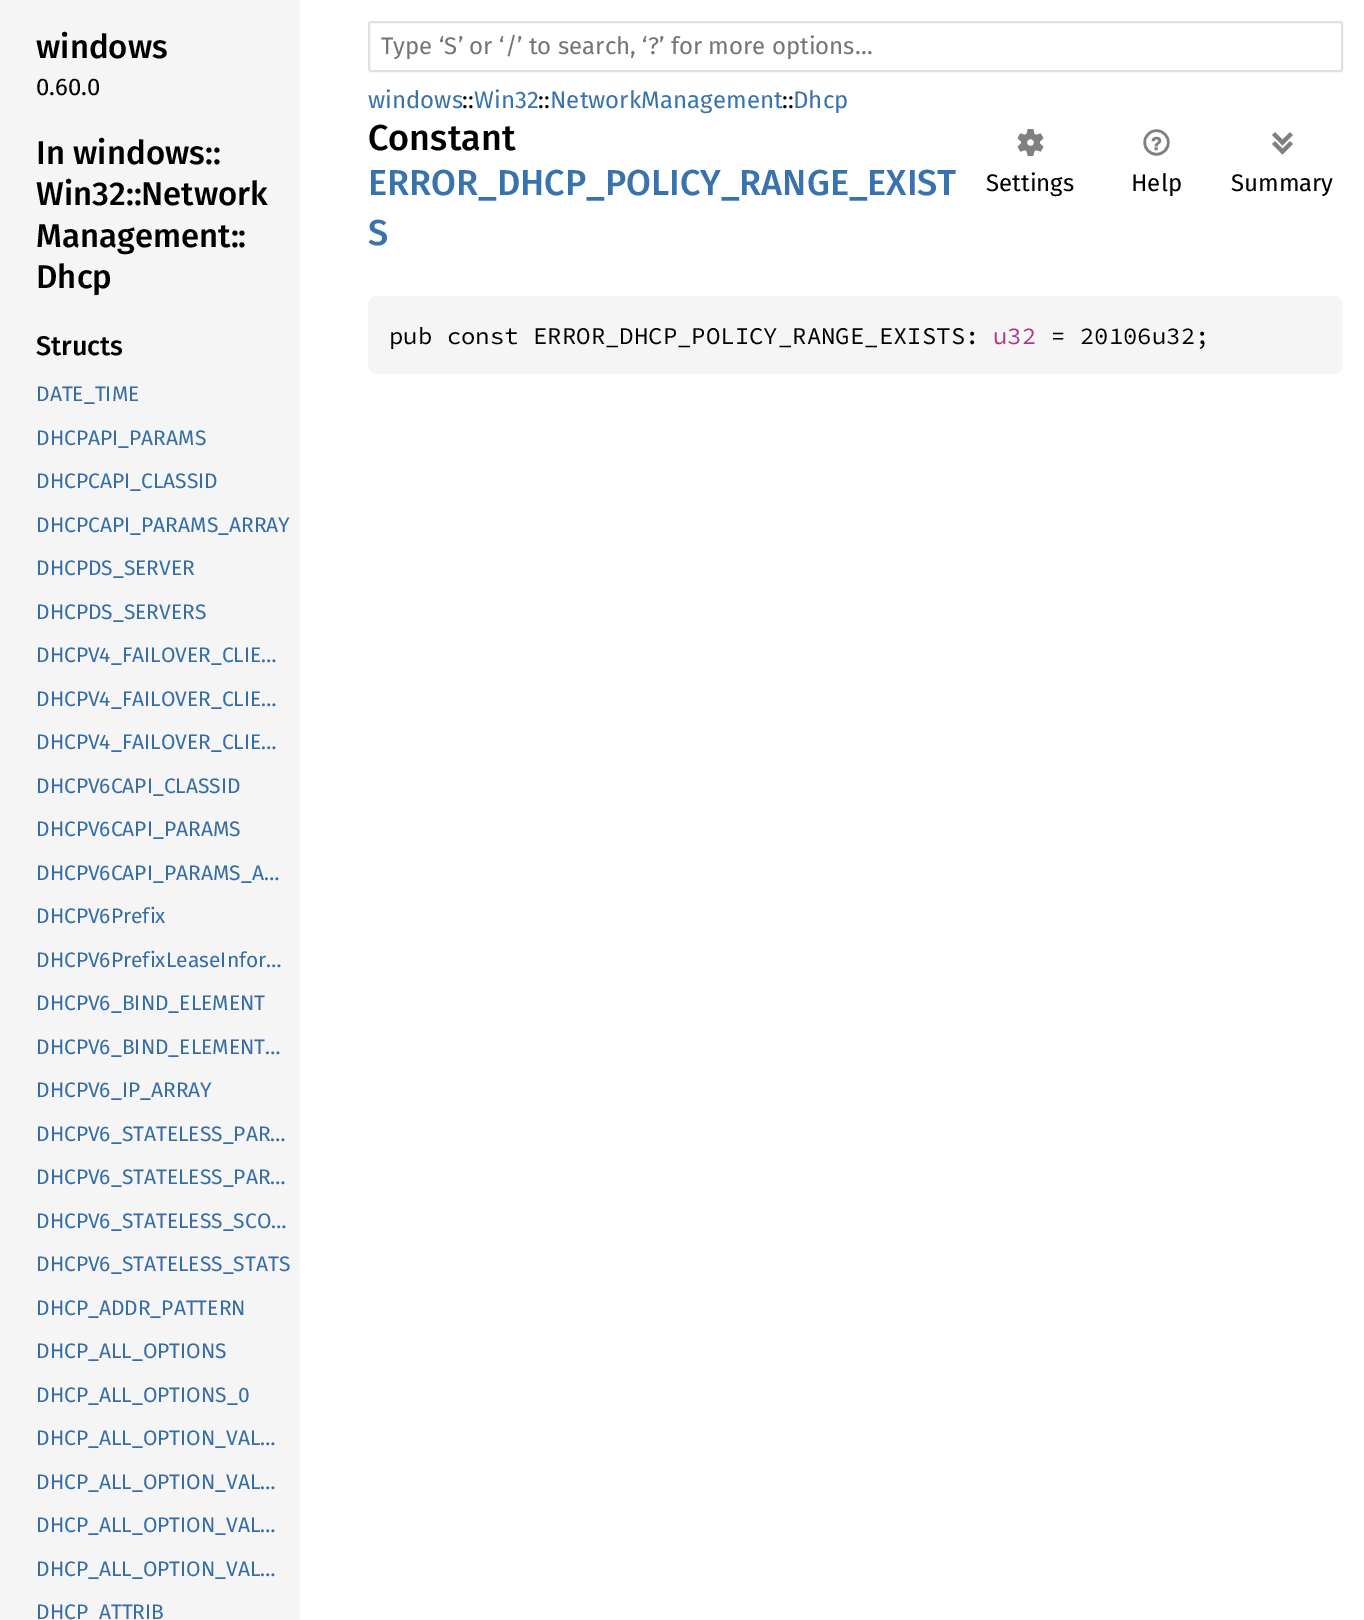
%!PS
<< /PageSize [1364 1620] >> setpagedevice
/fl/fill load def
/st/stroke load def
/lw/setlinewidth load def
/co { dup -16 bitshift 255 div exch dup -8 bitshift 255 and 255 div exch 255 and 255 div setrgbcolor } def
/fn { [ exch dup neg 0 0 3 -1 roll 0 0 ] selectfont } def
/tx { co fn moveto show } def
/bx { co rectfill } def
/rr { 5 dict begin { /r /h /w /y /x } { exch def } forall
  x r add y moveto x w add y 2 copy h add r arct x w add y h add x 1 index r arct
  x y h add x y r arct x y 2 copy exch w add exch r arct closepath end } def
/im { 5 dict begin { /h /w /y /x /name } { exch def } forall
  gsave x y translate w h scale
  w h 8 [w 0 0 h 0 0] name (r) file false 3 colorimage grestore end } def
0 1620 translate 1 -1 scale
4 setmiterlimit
0 0 1364 1620 16#FFFFFF bx
0 0 300 1620 16#F5F5F5 bx
16#E0E0E0 co
2 lw
369 22 973 49 2 rr st
(media/1.raw) 1017 129 27 27 im
(media/2.raw) 1143 129 27 27 im
(media/3.raw) 1272 132 21 23 im
16#F5F5F5 co
368 296 975 78 9 rr fl
(windows) 36 58 /FiraSans-Medium 33 16#000000 tx
(0.60.0) 36 95 /FiraSans-Regular 24 16#000000 tx
(In windows::) 36 164 /FiraSans-Medium 33 16#000000 tx
(Win32::) 36 205 /FiraSans-Medium 33 16#000000 tx
(Network) 141 205 /FiraSans-Medium 33 16#000000 tx
(Management::) 36 247 /FiraSans-Medium 33 16#000000 tx
(Dhcp) 36 288 /FiraSans-Medium 33 16#000000 tx
(Structs) 36 355 /FiraSans-Medium 27 16#000000 tx
(DATE_TIME) 36 401 /FiraSans-Regular 21 16#356DA4 tx
(DHCPAPI_PARAMS) 36 445 /FiraSans-Regular 21 16#356DA4 tx
(DHCPCAPI_CLASSID) 36 488 /FiraSans-Regular 21 16#356DA4 tx
(DHCPCAPI_PARAMS_ARRAY) 36 532 /FiraSans-Regular 21 16#356DA4 tx
(DHCPDS_SERVER) 36 575 /FiraSans-Regular 21 16#356DA4 tx
(DHCPDS_SERVERS) 36 619 /FiraSans-Regular 21 16#356DA4 tx
(DHCPV4_FAILOVER_CLIE…) 36 662 /FiraSans-Regular 21 16#356DA4 tx
(DHCPV4_FAILOVER_CLIE…) 36 706 /FiraSans-Regular 21 16#356DA4 tx
(DHCPV4_FAILOVER_CLIE…) 36 749 /FiraSans-Regular 21 16#356DA4 tx
(DHCPV6CAPI_CLASSID) 36 793 /FiraSans-Regular 21 16#356DA4 tx
(DHCPV6CAPI_PARAMS) 36 836 /FiraSans-Regular 21 16#356DA4 tx
(DHCPV6CAPI_PARAMS_A…) 36 880 /FiraSans-Regular 21 16#356DA4 tx
(DHCPV6Prefix) 36 923 /FiraSans-Regular 21 16#356DA4 tx
(DHCPV6PrefixLeaseInfor…) 36 967 /FiraSans-Regular 21 16#356DA4 tx
(DHCPV6_BIND_ELEMENT) 36 1010 /FiraSans-Regular 21 16#356DA4 tx
(DHCPV6_BIND_ELEMENT…) 36 1054 /FiraSans-Regular 21 16#356DA4 tx
(DHCPV6_IP_ARRAY) 36 1097 /FiraSans-Regular 21 16#356DA4 tx
(DHCPV6_STATELESS_PAR…) 36 1141 /FiraSans-Regular 21 16#356DA4 tx
(DHCPV6_STATELESS_PAR…) 36 1184 /FiraSans-Regular 21 16#356DA4 tx
(DHCPV6_STATELESS_SCO…) 36 1228 /FiraSans-Regular 21 16#356DA4 tx
(DHCPV6_STATELESS_STATS) 36 1271 /FiraSans-Regular 21 16#356DA4 tx
(DHCP_ADDR_PATTERN) 36 1315 /FiraSans-Regular 21 16#356DA4 tx
(DHCP_ALL_OPTIONS) 36 1358 /FiraSans-Regular 21 16#356DA4 tx
(DHCP_ALL_OPTIONS_0) 36 1402 /FiraSans-Regular 21 16#356DA4 tx
(DHCP_ALL_OPTION_VAL…) 36 1445 /FiraSans-Regular 21 16#356DA4 tx
(DHCP_ALL_OPTION_VAL…) 36 1489 /FiraSans-Regular 21 16#356DA4 tx
(DHCP_ALL_OPTION_VAL…) 36 1532 /FiraSans-Regular 21 16#356DA4 tx
(DHCP_ALL_OPTION_VAL…) 36 1576 /FiraSans-Regular 21 16#356DA4 tx
(DHCP_ATTRIB) 36 1619 /FiraSans-Regular 21 16#356DA4 tx
(Type ‘S’ or ‘/’ to search, ‘?’ for more options…) 381 54 /FiraSans-Regular 24 16#757575 tx
(windows) 368 108 /FiraSans-Regular 24 16#3873AD tx
(::) 462 108 /FiraSans-Regular 24 16#000000 tx
(Win32) 474 108 /FiraSans-Regular 24 16#3873AD tx
(::) 538 108 /FiraSans-Regular 24 16#000000 tx
(::) 782 108 /FiraSans-Regular 24 16#000000 tx
(NetworkManagement) 550 108 /FiraSans-Regular 24 16#3873AD tx
(Dhcp) 793 108 /FiraSans-Regular 24 16#3873AD tx
(Constant) 368 150 /FiraSans-Medium 36 16#000000 tx
(ERROR_DHCP_POLICY_RANGE_EXIST) 368 195 /FiraSans-Medium 36 16#3873AD tx
(S) 368 245 /FiraSans-Medium 36 16#3873AD tx
(Settings) 986 191 /FiraSans-Regular 24 16#000000 tx
(Help) 1131 191 /FiraSans-Regular 24 16#000000 tx
(Summary) 1231 191 /FiraSans-Regular 24 16#000000 tx
(pub const ERROR_DHCP_POLICY_RANGE_EXISTS:) 389 344 /SourceCodePro-Regular 24 16#000000 tx
(u32) 993 344 /SourceCodePro-Regular 24 16#AD378A tx
(= 20106u32;) 1051 344 /SourceCodePro-Regular 24 16#000000 tx
showpage
